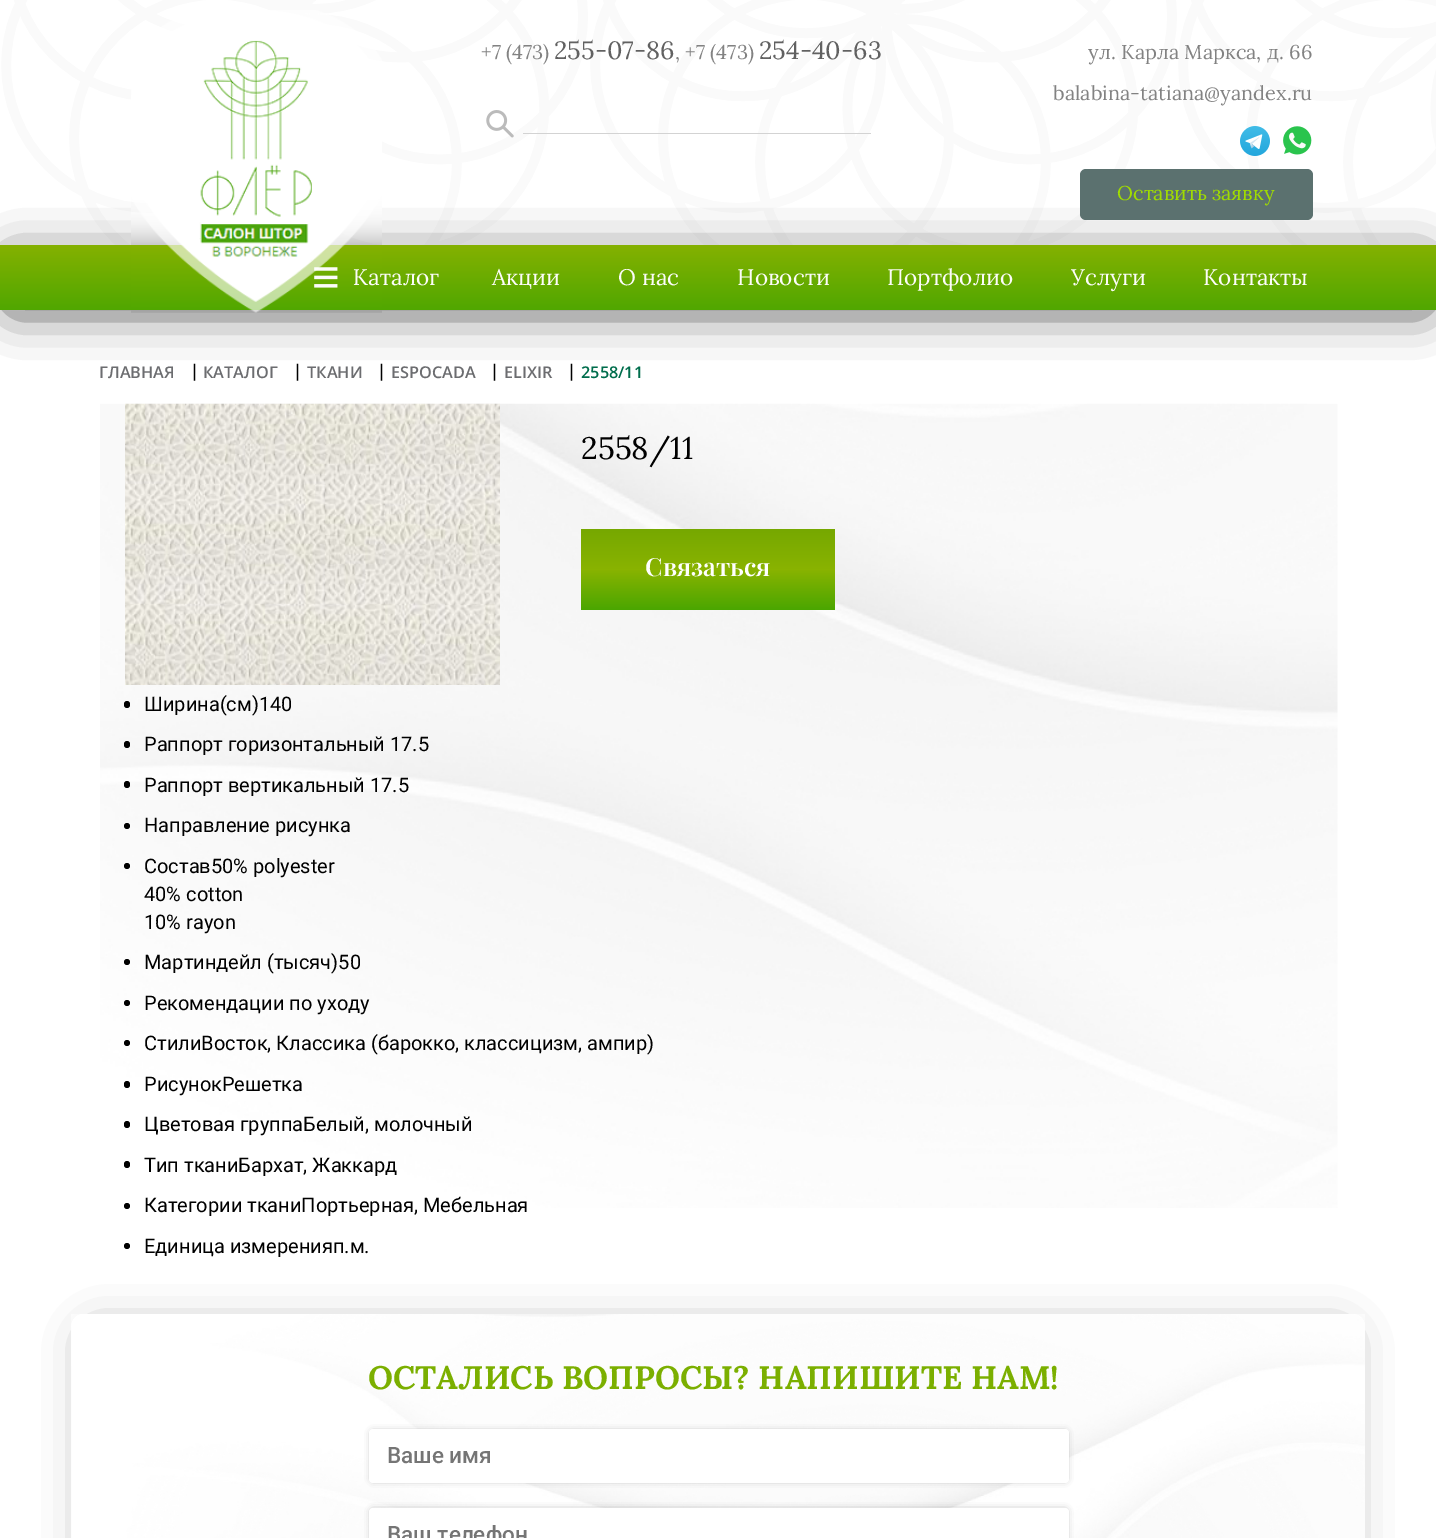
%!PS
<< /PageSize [1436 1538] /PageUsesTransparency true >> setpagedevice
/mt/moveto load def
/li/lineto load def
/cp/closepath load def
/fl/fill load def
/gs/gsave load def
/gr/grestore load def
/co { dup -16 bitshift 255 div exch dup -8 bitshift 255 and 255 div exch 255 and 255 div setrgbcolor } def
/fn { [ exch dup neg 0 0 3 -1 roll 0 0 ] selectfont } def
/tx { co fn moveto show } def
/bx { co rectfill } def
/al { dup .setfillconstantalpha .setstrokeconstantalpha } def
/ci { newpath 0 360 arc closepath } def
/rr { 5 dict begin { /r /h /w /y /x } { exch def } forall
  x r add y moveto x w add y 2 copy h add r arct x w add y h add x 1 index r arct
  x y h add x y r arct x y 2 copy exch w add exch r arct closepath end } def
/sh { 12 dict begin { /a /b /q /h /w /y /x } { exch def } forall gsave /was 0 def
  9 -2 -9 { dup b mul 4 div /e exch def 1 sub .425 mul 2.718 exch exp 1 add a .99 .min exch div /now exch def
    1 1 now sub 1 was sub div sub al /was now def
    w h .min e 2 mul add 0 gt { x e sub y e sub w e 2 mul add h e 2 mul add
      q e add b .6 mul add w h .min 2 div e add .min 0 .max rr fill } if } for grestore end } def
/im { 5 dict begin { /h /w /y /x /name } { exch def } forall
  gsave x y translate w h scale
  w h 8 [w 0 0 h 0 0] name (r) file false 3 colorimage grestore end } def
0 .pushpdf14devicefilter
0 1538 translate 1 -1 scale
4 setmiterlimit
0 0 1436 1538 16#FFFFFF bx
(media/1.raw) 1 0 1435 245 im
(media/3.raw) 486 110 28 28 im
523 133 348 1 16#D3D3D3 bx
(media/4.raw) 1240 126 30 30 im
(media/5.raw) 1283 126 29 29 im
16#000000 co
13 264 1411 40 0 25 1 sh
16#5B716F co
1080 169 233 51 6 rr fl
gs 0 245 mt 1436 245 li 1436 310 li 0 310 li cp clip newpath
<< /ShadingType 2 /ColorSpace /DeviceRGB /Coords [718 245 718 310] /Extend [true true] /Function << /FunctionType 2 /Domain [0 1] /C0 [.522 .694 0] /C1 [.314 .655 0] /N 1 >> >> shfill gr
(media/6.raw) 100 403 1238 805 im
(media/7.raw) 125 403 375 282 im
gs 581 529 mt 835 529 li 835 610 li 581 610 li cp clip newpath
<< /ShadingType 2 /ColorSpace /DeviceRGB /Coords [708 529 708 610] /Extend [true true] /Function << /FunctionType 3 /Domain [0 1] /Functions [<< /FunctionType 2 /Domain [0 1] /C0 [.463 .659 0] /C1 [.537 .702 0] /N 1 >> << /FunctionType 2 /Domain [0 1] /C0 [.537 .702 0] /C1 [.29 .651 0] /N 1 >>] /Bounds [.5] /Encode [0 1 0 1] >> >> shfill gr
16#000000 co
124 701 6 7 3 rr fl
124 741 6 7 3 rr fl
124 781 6 7 3 rr fl
127 826 3 ci fl
127 866 3 ci fl
127 962 3 ci fl
127 1003 3 ci fl
127 1043 3 ci fl
124 1081 6 7 3 rr fl
124 1121 6 7 3 rr fl
124 1161 6 7 3 rr fl
127 1206 3 ci fl
127 1246 3 ci fl
16#737373 co
95 1338 1246 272 0 24 1 sh
(media/8.raw) 71 1314 1294 224 im
373 1433 692 46 0 4 1 sh
16#FFFFFF co
369 1429 700 54 4 rr fl
16#737373 co
373 1511 692 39 0 4 1 sh
16#FFFFFF co
369 1508 700 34 4 rr fl
(+7 \(473\)) 481 59 /Lora-Regular 20 16#828282 tx
(255-07-86) 554 59 /Lora-Regular 25 16#616161 tx
(, +7 \(473\)) 675 59 /Lora-Regular 20 16#828282 tx
(254-40-63) 759 59 /Lora-Regular 25 16#616161 tx
(ул) 1088 59 /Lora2-Regular 20 16#828282 tx
(.) 1111 59 /Lora-Regular 20 16#828282 tx
(Карла Маркса) 1121 59 /Lora2-Regular 20 16#828282 tx
(,) 1256 59 /Lora-Regular 20 16#828282 tx
(д) 1267 59 /Lora2-Regular 20 16#828282 tx
(. 66) 1279 59 /Lora-Regular 20 16#828282 tx
(balabina-tatiana@yandex.ru) 1053 100 /Lora-Regular 20 16#828282 tx
(Оставить заявку) 1117 200 /Lora2-Regular 20 16#A0DC00 tx
(≡) 312 294 /LiberationSerif-Bold 50 16#FCFCF9 tx
(Каталог) 353 285 /Lora2-Regular 22.5 16#FCFCF9 tx
(media/2.raw) 131 10 251 303 im
(Акции) 492 285 /Lora2-Regular 22.5 16#FCFCF9 tx
(О нас) 618 285 /Lora2-Regular 22.5 16#FCFCF9 tx
(Новости) 737 285 /Lora2-Regular 22.5 16#FCFCF9 tx
(Портфолио) 887 285 /Lora2-Regular 22.5 16#FCFCF9 tx
(Услуги) 1071 285 /Lora2-Regular 22.5 16#FCFCF9 tx
(Контакты) 1203 285 /Lora2-Regular 22.5 16#FCFCF9 tx
(ГЛАВНАЯ) 99 378 /OpenSans-SemiBold 16.25 16#6C6D70 tx
(|) 192 378 /Roboto-Regular 20 16#000000 tx
(КАТАЛОГ) 203 378 /OpenSans-SemiBold 16.25 16#6C6D70 tx
(|) 295 378 /Roboto-Regular 20 16#000000 tx
(ТКАНИ) 307 378 /OpenSans-SemiBold 16.25 16#6C6D70 tx
(|) 379 378 /Roboto-Regular 20 16#000000 tx
(ESPOCADA) 391 378 /OpenSans-SemiBold 16.25 16#6C6D70 tx
(|) 492 378 /Roboto-Regular 20 16#000000 tx
(ELIXIR) 504 378 /OpenSans-SemiBold 16.25 16#6C6D70 tx
(|) 569 378 /Roboto-Regular 20 16#000000 tx
(2558/11) 581 378 /OpenSans-SemiBold 16.25 16#006D4C tx
(2558/11) 581 459 /Lora-Regular 31 16#000000 tx
(Связаться) 645 576 /PlayfairDisplay-SemiBold 25 16#FFFFFF tx
(Ширина\(см\)140) 144 711 /Roboto-Regular 20 16#000000 tx
(Раппорт горизонтальный 17.5) 144 751 /Roboto-Regular 20 16#000000 tx
(Раппорт вертикальный 17.5) 144 792 /Roboto-Regular 20 16#000000 tx
(Направление рисунка) 144 832 /Roboto-Regular 20 16#000000 tx
(Состав50% polyester) 144 873 /Roboto-Regular 20 16#000000 tx
(40% cotton) 144 901 /Roboto-Regular 20 16#000000 tx
(10% rayon) 144 929 /Roboto-Regular 20 16#000000 tx
(Мартиндейл \(тысяч\)50) 144 969 /Roboto-Regular 20 16#000000 tx
(Рекомендации по уходу) 144 1010 /Roboto-Regular 20 16#000000 tx
(СтилиВосток, Классика \(барокко, классицизм, ампир\)) 144 1050 /Roboto-Regular 20 16#000000 tx
(РисунокРешетка) 144 1091 /Roboto-Regular 20 16#000000 tx
(Цветовая группаБелый, молочный) 144 1131 /Roboto-Regular 20 16#000000 tx
(Тип тканиБархат, Жаккард) 144 1172 /Roboto-Regular 20 16#000000 tx
(Категории тканиПортьерная, Мебельная) 144 1212 /Roboto-Regular 20 16#000000 tx
(Единица измеренияп.м.) 144 1253 /Roboto-Regular 20 16#000000 tx
(ОСТАЛИСЬ ВОПРОСЫ? НАПИШИТЕ НАМ!) 368 1389 /Lora-Bold 32.5 16#7BAF00 tx
(Ваше имя) 387 1463 /Roboto-Medium 22.5 16#757575 tx
(Ваш телефон) 387 1542 /Roboto-Medium 22.5 16#757575 tx
.poppdf14devicefilter showpage
